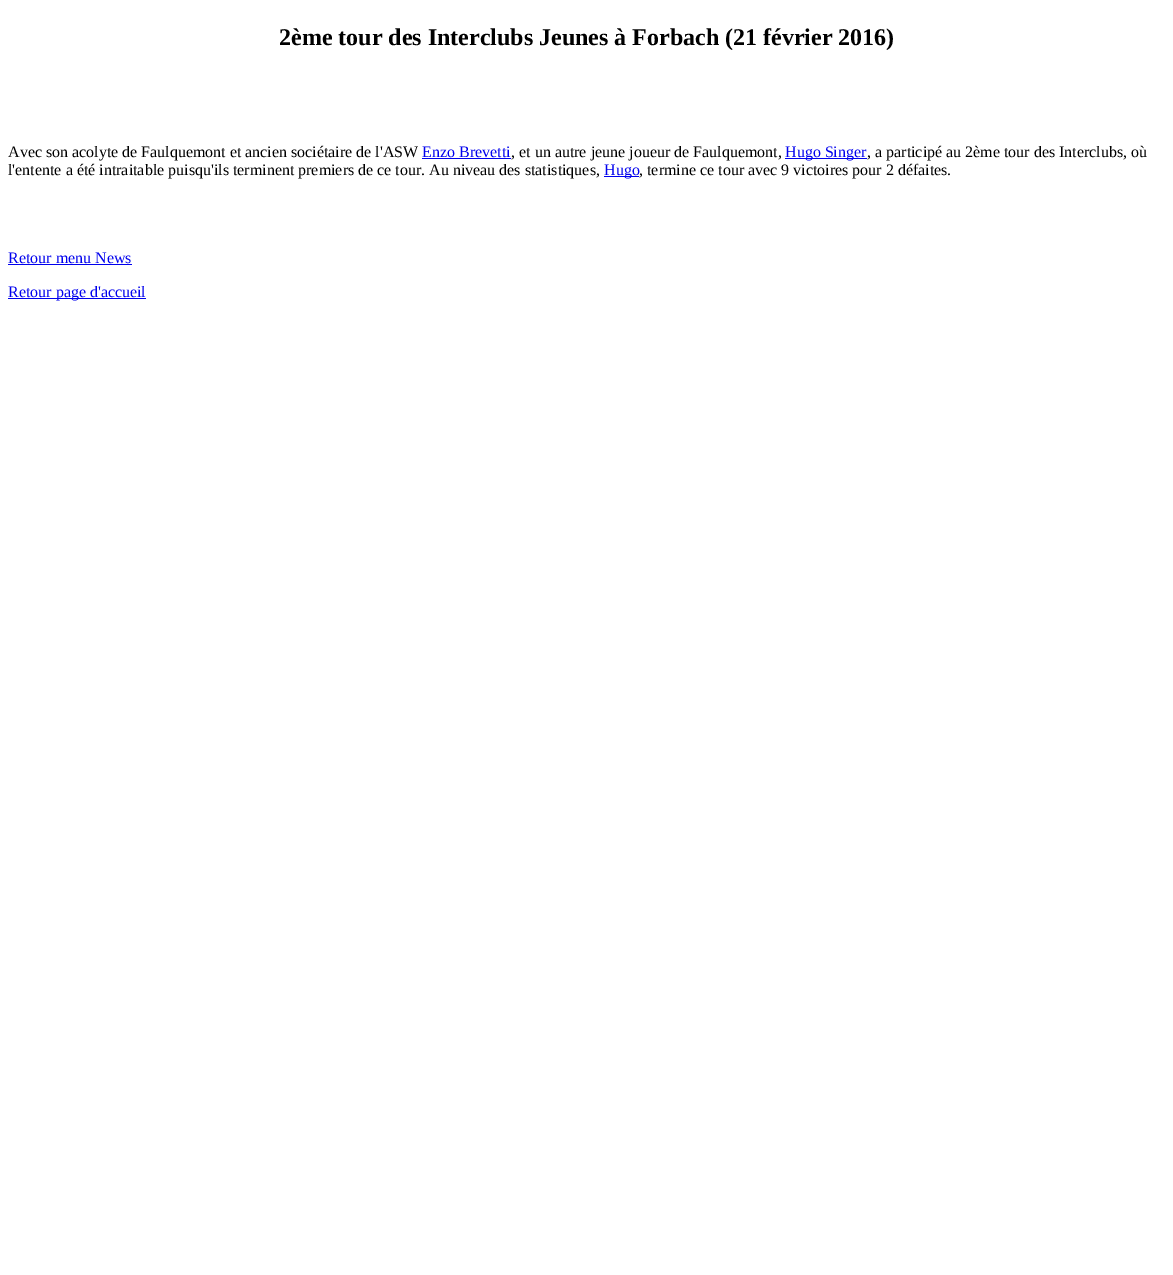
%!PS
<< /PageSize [1173 1275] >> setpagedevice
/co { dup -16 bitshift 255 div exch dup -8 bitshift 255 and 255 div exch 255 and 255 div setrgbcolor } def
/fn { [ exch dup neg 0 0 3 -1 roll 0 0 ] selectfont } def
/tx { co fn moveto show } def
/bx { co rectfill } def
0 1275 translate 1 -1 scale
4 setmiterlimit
0 0 1173 1275 16#FFFFFF bx
422 158 89 1 16#0000EE bx
785 158 82 1 16#0000EE bx
604 176 35 1 16#0000EE bx
8 264 124 1 16#0000EE bx
8 298 138 1 16#0000EE bx
(2ème tour des Interclubs Jeunes à Forbach \(21 février 2016\)) 279 45 /LiberationSerif-Bold 24 16#000000 tx
(Avec son acolyte de Faulquemont et ancien sociétaire de l'ASW) 8 157 /LiberationSerif-Regular 16 16#000000 tx
(Enzo Brevetti) 422 157 /LiberationSerif-Regular 16 16#0000EE tx
(, et un autre jeune joueur de Faulquemont,) 511 157 /LiberationSerif-Regular 16 16#000000 tx
(Hugo Singer) 785 157 /LiberationSerif-Regular 16 16#0000EE tx
(, a participé au 2ème tour des Interclubs, où) 867 157 /LiberationSerif-Regular 16 16#000000 tx
(l'entente a été intraitable puisqu'ils terminent premiers de ce tour. Au niveau des statistiques,) 8 175 /LiberationSerif-Regular 16 16#000000 tx
(Hugo) 604 175 /LiberationSerif-Regular 16 16#0000EE tx
(, termine ce tour avec 9 victoires pour 2 défaites.) 639 175 /LiberationSerif-Regular 16 16#000000 tx
(Retour menu News) 8 263 /LiberationSerif-Regular 16 16#0000EE tx
(Retour page d'accueil) 8 297 /LiberationSerif-Regular 16 16#0000EE tx
showpage
